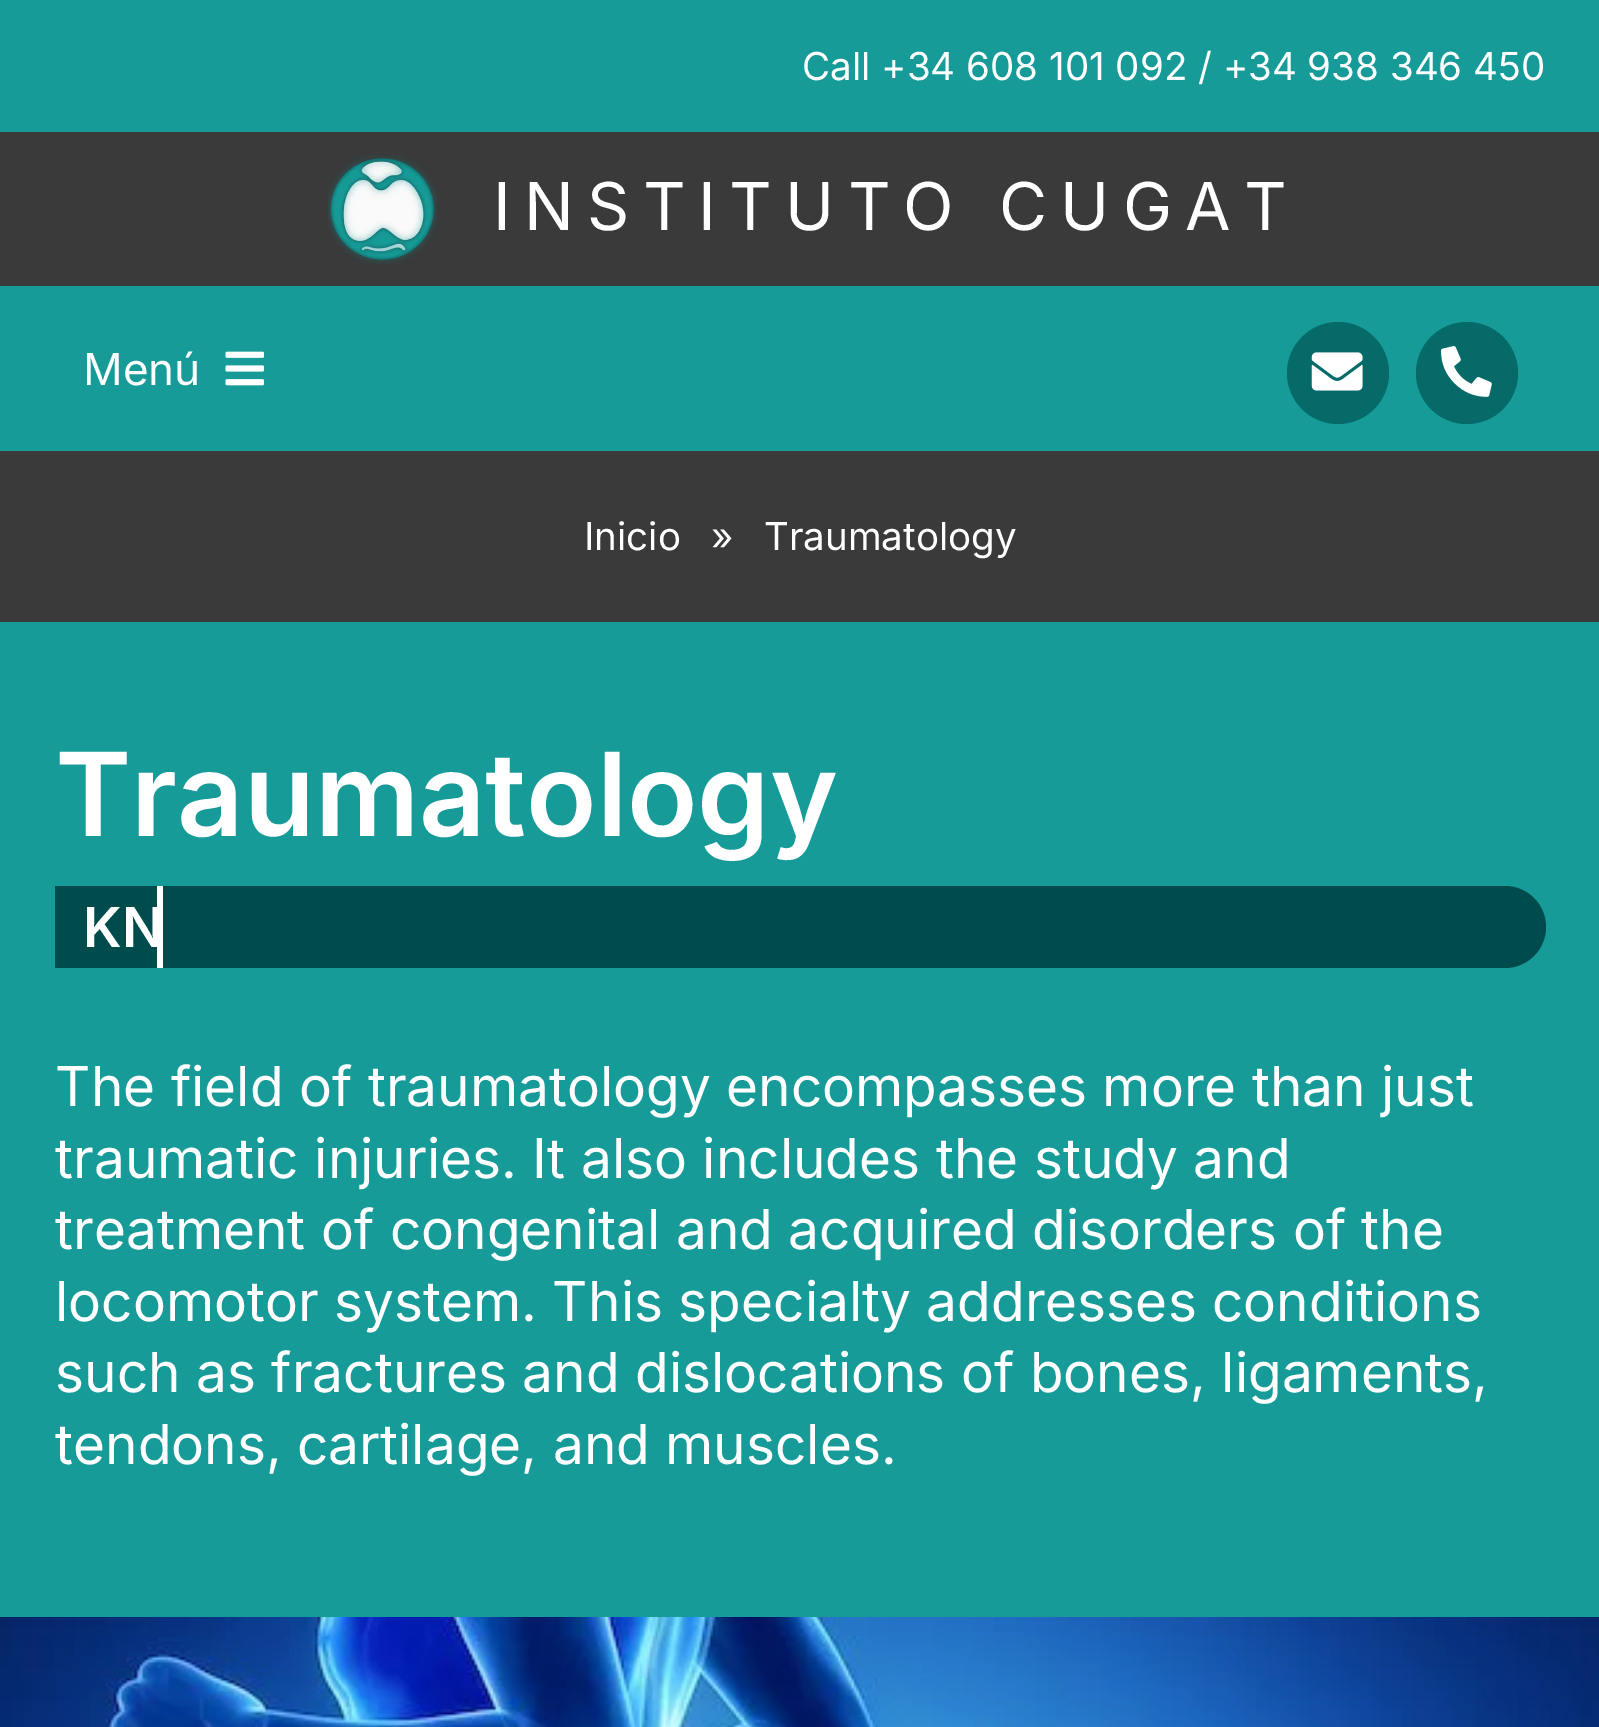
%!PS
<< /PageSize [1599 1727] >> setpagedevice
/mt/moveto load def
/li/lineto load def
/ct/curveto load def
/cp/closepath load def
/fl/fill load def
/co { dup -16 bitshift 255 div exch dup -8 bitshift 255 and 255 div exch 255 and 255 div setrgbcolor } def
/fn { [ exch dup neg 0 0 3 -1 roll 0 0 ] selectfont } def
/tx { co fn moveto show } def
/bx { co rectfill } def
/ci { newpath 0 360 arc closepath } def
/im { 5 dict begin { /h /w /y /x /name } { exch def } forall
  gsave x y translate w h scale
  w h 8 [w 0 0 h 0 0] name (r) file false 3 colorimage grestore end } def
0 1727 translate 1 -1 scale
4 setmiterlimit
0 0 1599 1727 16#3A3A3A bx
0 0 1599 132 16#169B98 bx
(media/1.raw) 327 155 110 109 im
0 286 1599 165 16#169B98 bx
(media/2.raw) 225 351 39 35 im
16#066A68 co
1338 373 51 ci fl
(media/3.raw) 1311 352 52 39 im
1467 373 51 ci fl
(media/4.raw) 1441 346 51 51 im
0 622 1599 995 16#169B98 bx
16#004C4C co
55 886 mt 1505 886 li 1527.5 886 1546 904.5 1546 927 ct 1546 949.5 1527.5 968 1505 968 ct 55 968 li cp fl
157 886 6 82 16#FFFFFF bx
(media/5.raw) 0 1617 1599 110 im
(Call +34 608 101 092 / +34 938 346 450) 802 80 /Inter-Regular 38.5 16#FFFFFF tx
/Inter-Regular 66 fn
493 230 mt 13.25 0 (INSTITUTO CUGAT) ashow
(Menú) 83 385 /Inter-Regular 44 16#FFFFFF tx
(Inicio) 584 550 /Inter-Regular 38.5 16#FFFFFF tx
(») 711 550 /Inter-Regular 38.5 16#FFFFFF tx
(Traumatology) 764 550 /Inter-Regular 38.5 16#FFFFFF tx
(Traumatology) 55 836 /Inter-SemiBold 115.75 16#FFFFFF tx
(KN) 83 947 /Inter-SemiBold 55 16#FFFFFF tx
(The field of traumatology encompasses more than just) 55 1106 /Inter-Regular 55 16#FFFFFF tx
(traumatic injuries. It also includes the study and) 55 1178 /Inter-Regular 55 16#FFFFFF tx
(treatment of congenital and acquired disorders of the) 55 1249 /Inter-Regular 55 16#FFFFFF tx
(locomotor system. This specialty addresses conditions) 55 1321 /Inter-Regular 55 16#FFFFFF tx
(such as fractures and dislocations of bones, ligaments,) 55 1392 /Inter-Regular 55 16#FFFFFF tx
(tendons, cartilage, and muscles.) 55 1464 /Inter-Regular 55 16#FFFFFF tx
showpage
